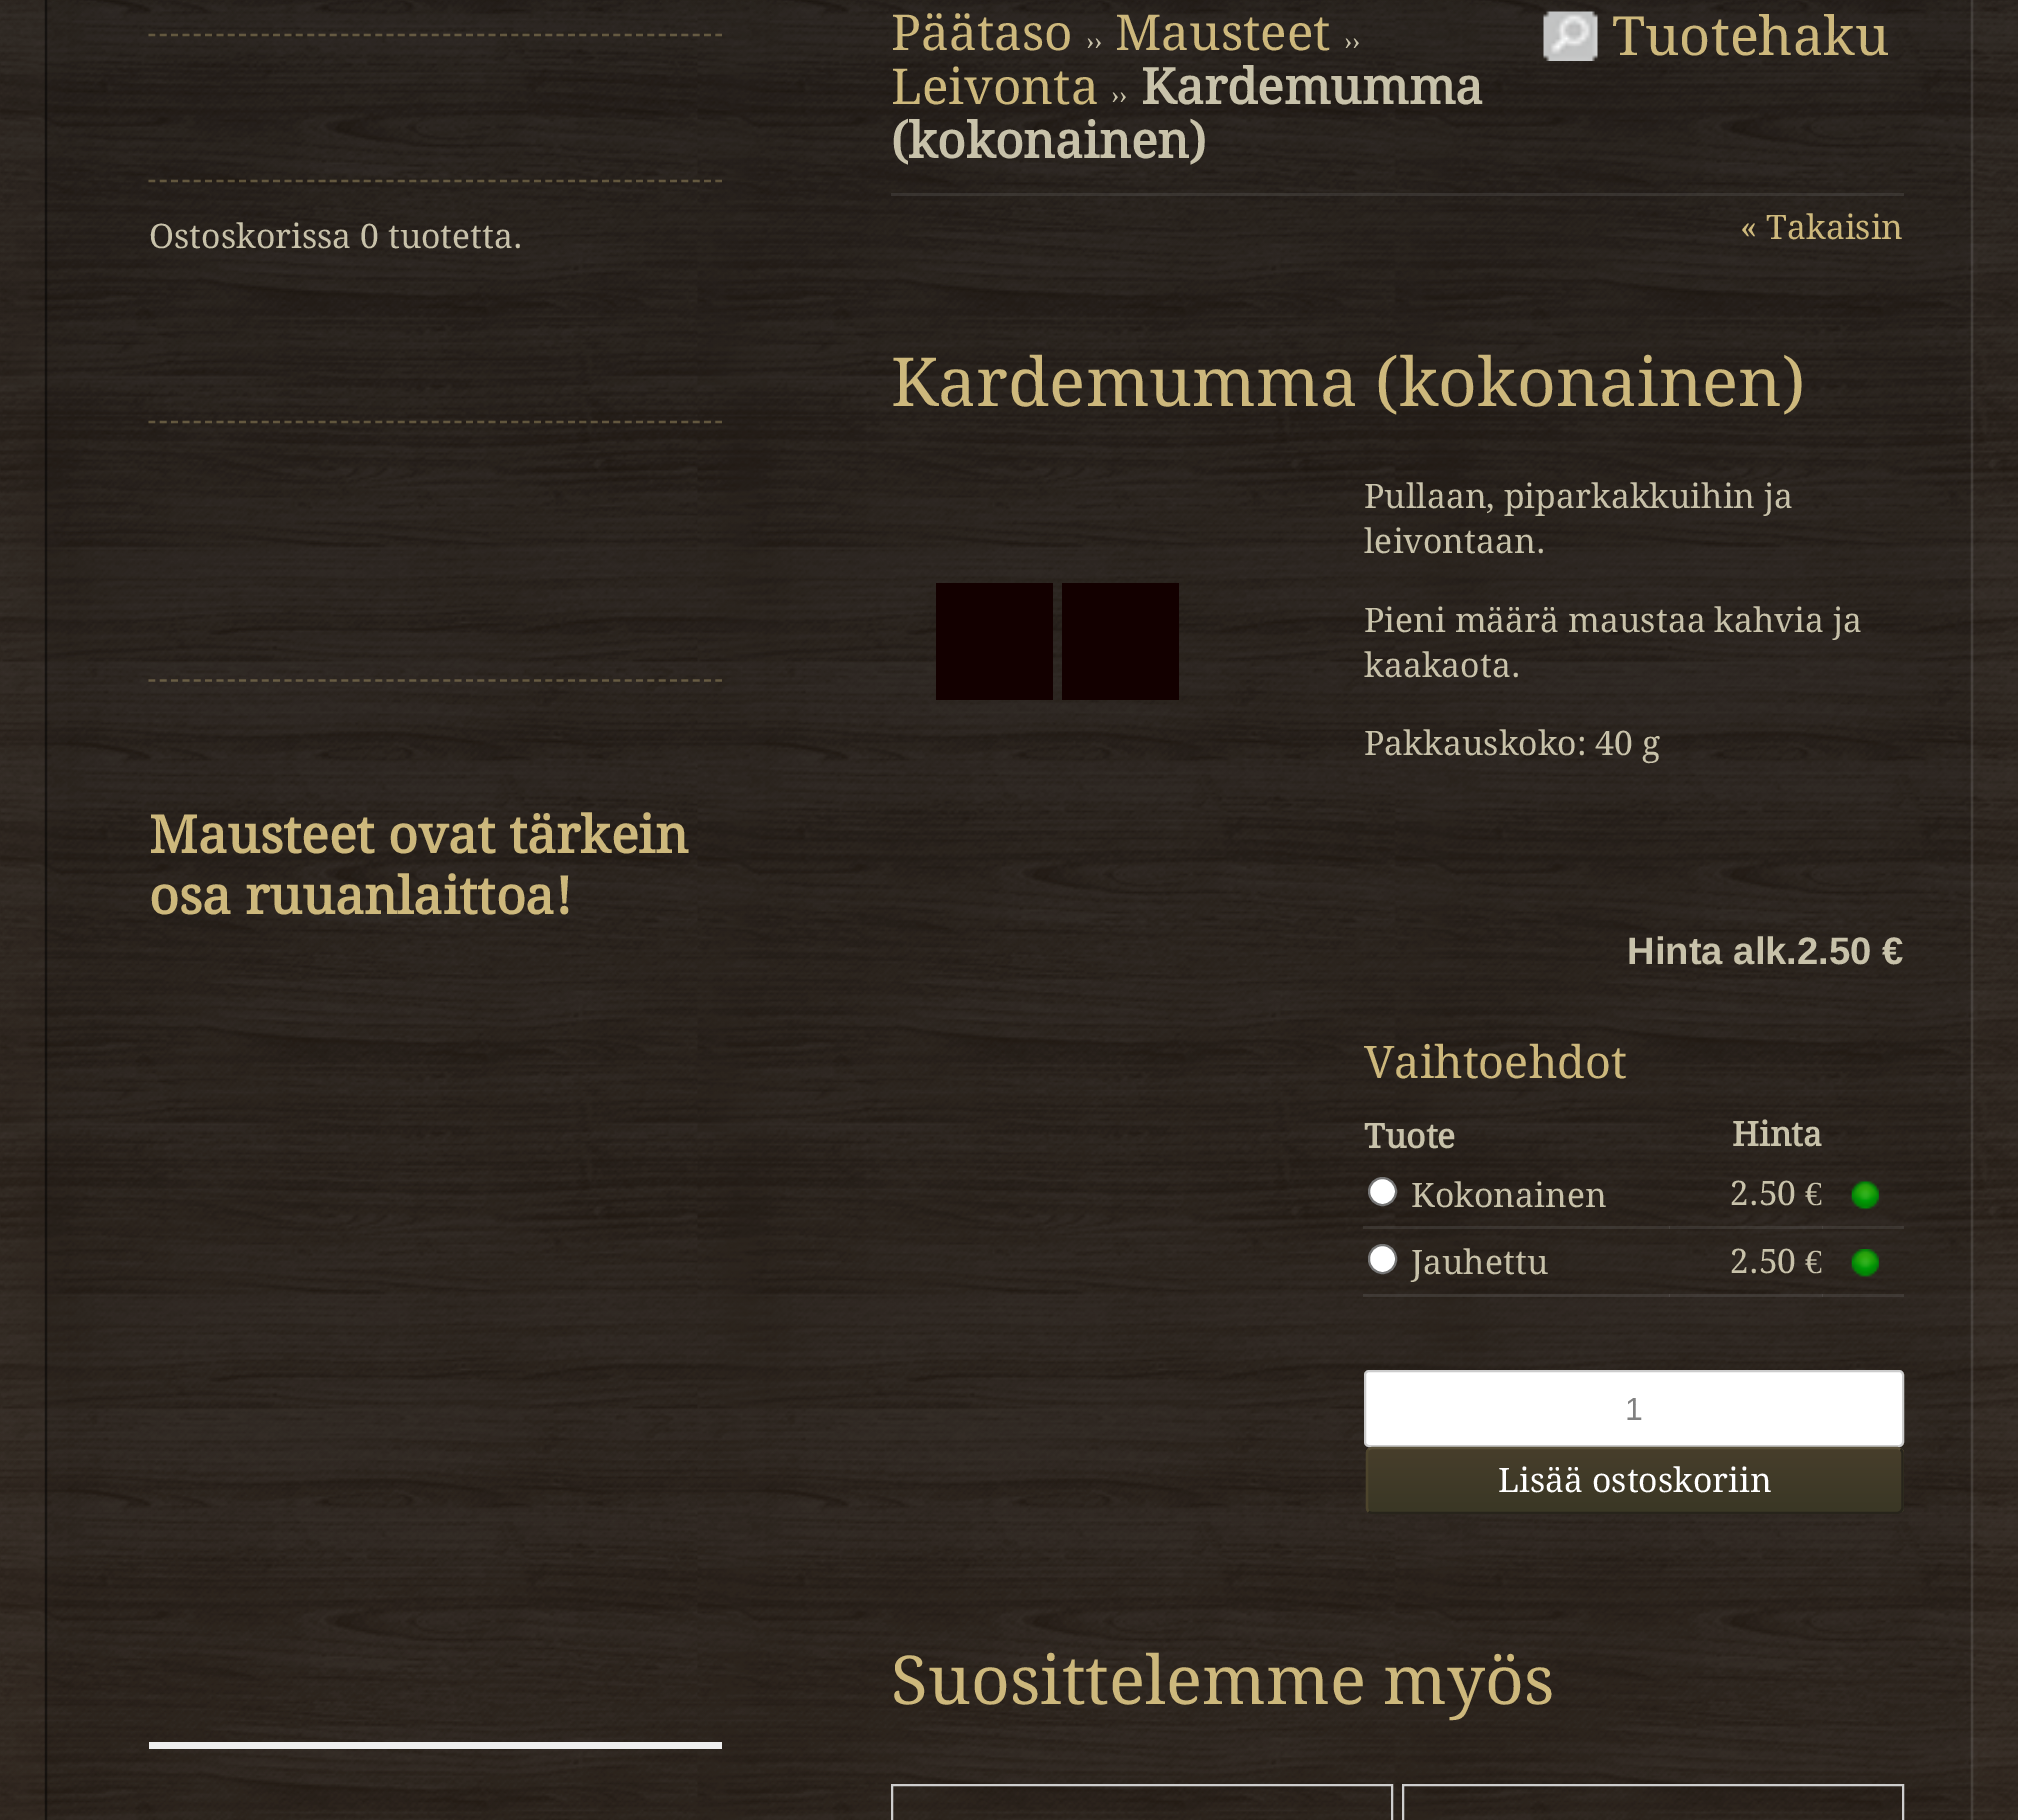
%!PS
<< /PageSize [2018 1820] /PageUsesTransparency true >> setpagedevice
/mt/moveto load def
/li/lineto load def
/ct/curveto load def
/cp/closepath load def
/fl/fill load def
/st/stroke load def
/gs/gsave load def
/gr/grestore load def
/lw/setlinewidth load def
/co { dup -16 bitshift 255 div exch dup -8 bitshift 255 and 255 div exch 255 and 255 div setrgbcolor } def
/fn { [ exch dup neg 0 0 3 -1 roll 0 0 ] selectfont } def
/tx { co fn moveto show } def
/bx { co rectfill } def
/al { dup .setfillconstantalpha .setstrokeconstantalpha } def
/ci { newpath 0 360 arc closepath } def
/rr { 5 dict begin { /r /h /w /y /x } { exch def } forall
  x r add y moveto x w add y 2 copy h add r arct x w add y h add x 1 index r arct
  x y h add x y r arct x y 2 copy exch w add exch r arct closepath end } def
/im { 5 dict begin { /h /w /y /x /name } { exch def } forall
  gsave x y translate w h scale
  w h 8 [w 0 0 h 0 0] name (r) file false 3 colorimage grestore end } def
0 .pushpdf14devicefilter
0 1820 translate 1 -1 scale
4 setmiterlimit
0 0 2018 1820 16#FFFFFF bx
(media/1.raw) 0 0 2018 1820 im
0.12 al
2.2 lw
1966 -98.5 mt 1970 -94.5 1972 -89 1972 -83 ct 1972 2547 li 1972 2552.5 1970 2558 1966 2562 ct 1962 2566 1956.5 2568.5 1951 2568.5 ct 67.5 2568.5 li 62 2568.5 56.5 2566 52.5 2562 ct st
0.49 al
16#000000 co
52.5 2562 mt 48.5 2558 46 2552.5 46 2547 ct 46 -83 li 46 -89 48.5 -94.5 52.5 -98.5 ct 56.5 -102.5 62 -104.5 67.5 -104.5 ct 1951 -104.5 li 1956.5 -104.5 1962 -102.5 1966 -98.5 ct st
0.36 al
16#CDB87C co
[6.75 4.59] 0 setdash
148.5 35 mt 722 35 li st
148.5 181 mt 722 181 li st
148.5 422 mt 722 422 li st
148.5 680.5 mt 722 680.5 li st
1 al
149 1742 573 7 16#EEEEEE bx
(media/2.raw) 1543 11 55 50 im
0.2 al
891 193 1013 3 16#828282 bx
1 al
936 583 117 117 16#130000 bx
1062 583 117 117 16#130000 bx
16#FFFFFF co
1382.5 1191.5 13.5 ci gs fl gr
16#767676 co
2 lw
[] 0 setdash
st
(media/3.raw) 1851 1181 28 29 im
0.2 al
1363 1226 307 3 16#828282 bx
1669 1226 154 3 16#828282 bx
1822 1226 82 3 16#828282 bx
1 al
16#FFFFFF co
1369 1245 27 28 13.5 rr gs fl gr
16#767676 co
st
(media/4.raw) 1851 1249 28 28 im
0.2 al
1363 1294 307 3 16#828282 bx
1669 1294 154 3 16#828282 bx
1822 1294 82 3 16#828282 bx
1 al
16#FFFFFF co
1365 1371 538 75 4 rr gs fl gr
16#CCCCCC co
st
gs
1366 1447 538 67 7 rr clip newpath
gs 1366 1449 mt 1904 1449 li 1904 1512 li 1366 1512 li cp clip newpath
<< /ShadingType 2 /ColorSpace /DeviceRGB /Coords [1635 1449 1635 1512] /Extend [true true] /Function << /FunctionType 2 /Domain [0 1] /C0 [.278 .243 .169] /C1 [.227 .216 .145] /N 1 >> >> shfill gr
gr
16#595039 co
2.2 lw
1368.5 1449.5 mt 1369.5 1448.5 1371 1448 1372.5 1448 ct 1897 1448 li 1898 1448 1899.5 1448.5 1900.5 1449.5 ct st
gs
891 457 1013 1057 rectclip
16#27241B co
1900.5 1449.5 mt 1902 1450.5 1902.5 1452 1902.5 1453.5 ct 1902.5 1507.5 li 1902.5 1509 1902 1510.5 1900.5 1511.5 ct 1899.5 1512.5 1898 1513 1897 1513 ct 1372.5 1513 li 1371 1513 1369.5 1512.5 1368.5 1511.5 ct st
gr
16#4D442C co
1368.5 1511.5 mt 1367.5 1510.5 1367 1509 1367 1507.5 ct 1367 1453.5 li 1367 1452 1367.5 1450.5 1368.5 1449.5 ct st
16#CECECE co
2 lw
892 1785 500 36 rectstroke
1403 1785 500 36 rectstroke
(Ostoskorissa 0 tuotetta.) 149 248 /DroidSerif-Regular 33.75 16#C8C2AA tx
(Mausteet ovat tärkein) 149 853 /DroidSerif-Bold 51.75 16#CDB87C tx
(osa ruuanlaittoa!) 149 914 /DroidSerif-Bold 51.75 16#CDB87C tx
(Päätaso) 891 50 /DroidSerif-Regular 49.5 16#CDB87C tx
(››) 1086 50 /DroidSerif-Regular 25 16#C8C2AA tx
(Mausteet) 1115 50 /DroidSerif-Regular 49.5 16#CDB87C tx
(››) 1344 50 /DroidSerif-Regular 25 16#C8C2AA tx
(Tuotehaku) 1612 55 /DroidSerif-Regular 54 16#CDB87C tx
(Leivonta) 891 104 /DroidSerif-Regular 49.5 16#CDB87C tx
(››) 1111 104 /DroidSerif-Regular 25 16#C8C2AA tx
(Kardemumma) 1141 104 /DroidSerif-Bold 49.5 16#C8C2AA tx
(\(kokonainen\)) 891 158 /DroidSerif-Bold 49.5 16#C8C2AA tx
(« Takaisin) 1740 239 /DroidSerif-Regular 33.75 16#CDB87C tx
(Kardemumma \(kokonainen\)) 891 406 /DroidSerif-Regular 67.5 16#CDB87C tx
(Pullaan, piparkakkuihin ja) 1364 508 /DroidSerif-Regular 33.75 16#C8C2AA tx
(leivontaan.) 1364 553 /DroidSerif-Regular 33.75 16#C8C2AA tx
(Pieni määrä maustaa kahvia ja) 1364 632 /DroidSerif-Regular 33.75 16#C8C2AA tx
(kaakaota.) 1364 677 /DroidSerif-Regular 33.75 16#C8C2AA tx
(Pakkauskoko: 40 g) 1364 755 /DroidSerif-Regular 33.75 16#C8C2AA tx
(Hinta alk.2.50 €) 1627 964 /LiberationSans-Bold 38.25 16#C8C2AA tx
(Vaihtoehdot) 1364 1078 /DroidSerif-Regular 45 16#CDB87C tx
(Tuote) 1364 1148 /DroidSerif-Bold 33.75 16#C8C2AA tx
(Hinta) 1732 1146 /DroidSerif-Bold 33.75 16#C8C2AA tx
(Kokonainen) 1411 1207 /DroidSerif-Regular 33.75 16#C8C2AA tx
(2.50) 1730 1205 /DroidSerif-Regular 33.75 16#C8C2AA tx
(€) 1805 1205 /LiberationSerif-Regular 33.75 16#C8C2AA tx
(Jauhettu) 1411 1274 /DroidSerif-Regular 33.75 16#C8C2AA tx
(2.50) 1730 1273 /DroidSerif-Regular 33.75 16#C8C2AA tx
(€) 1805 1273 /LiberationSerif-Regular 33.75 16#C8C2AA tx
(1) 1625 1420 /LiberationSans-Regular 32 16#818181 tx
(Lisää ostoskoriin) 1498 1492 /DroidSerif-Regular 33.75 16#FFFFFF tx
(Suosittelemme myös) 891 1704 /DroidSerif-Regular 67.5 16#CDB87C tx
.poppdf14devicefilter showpage
